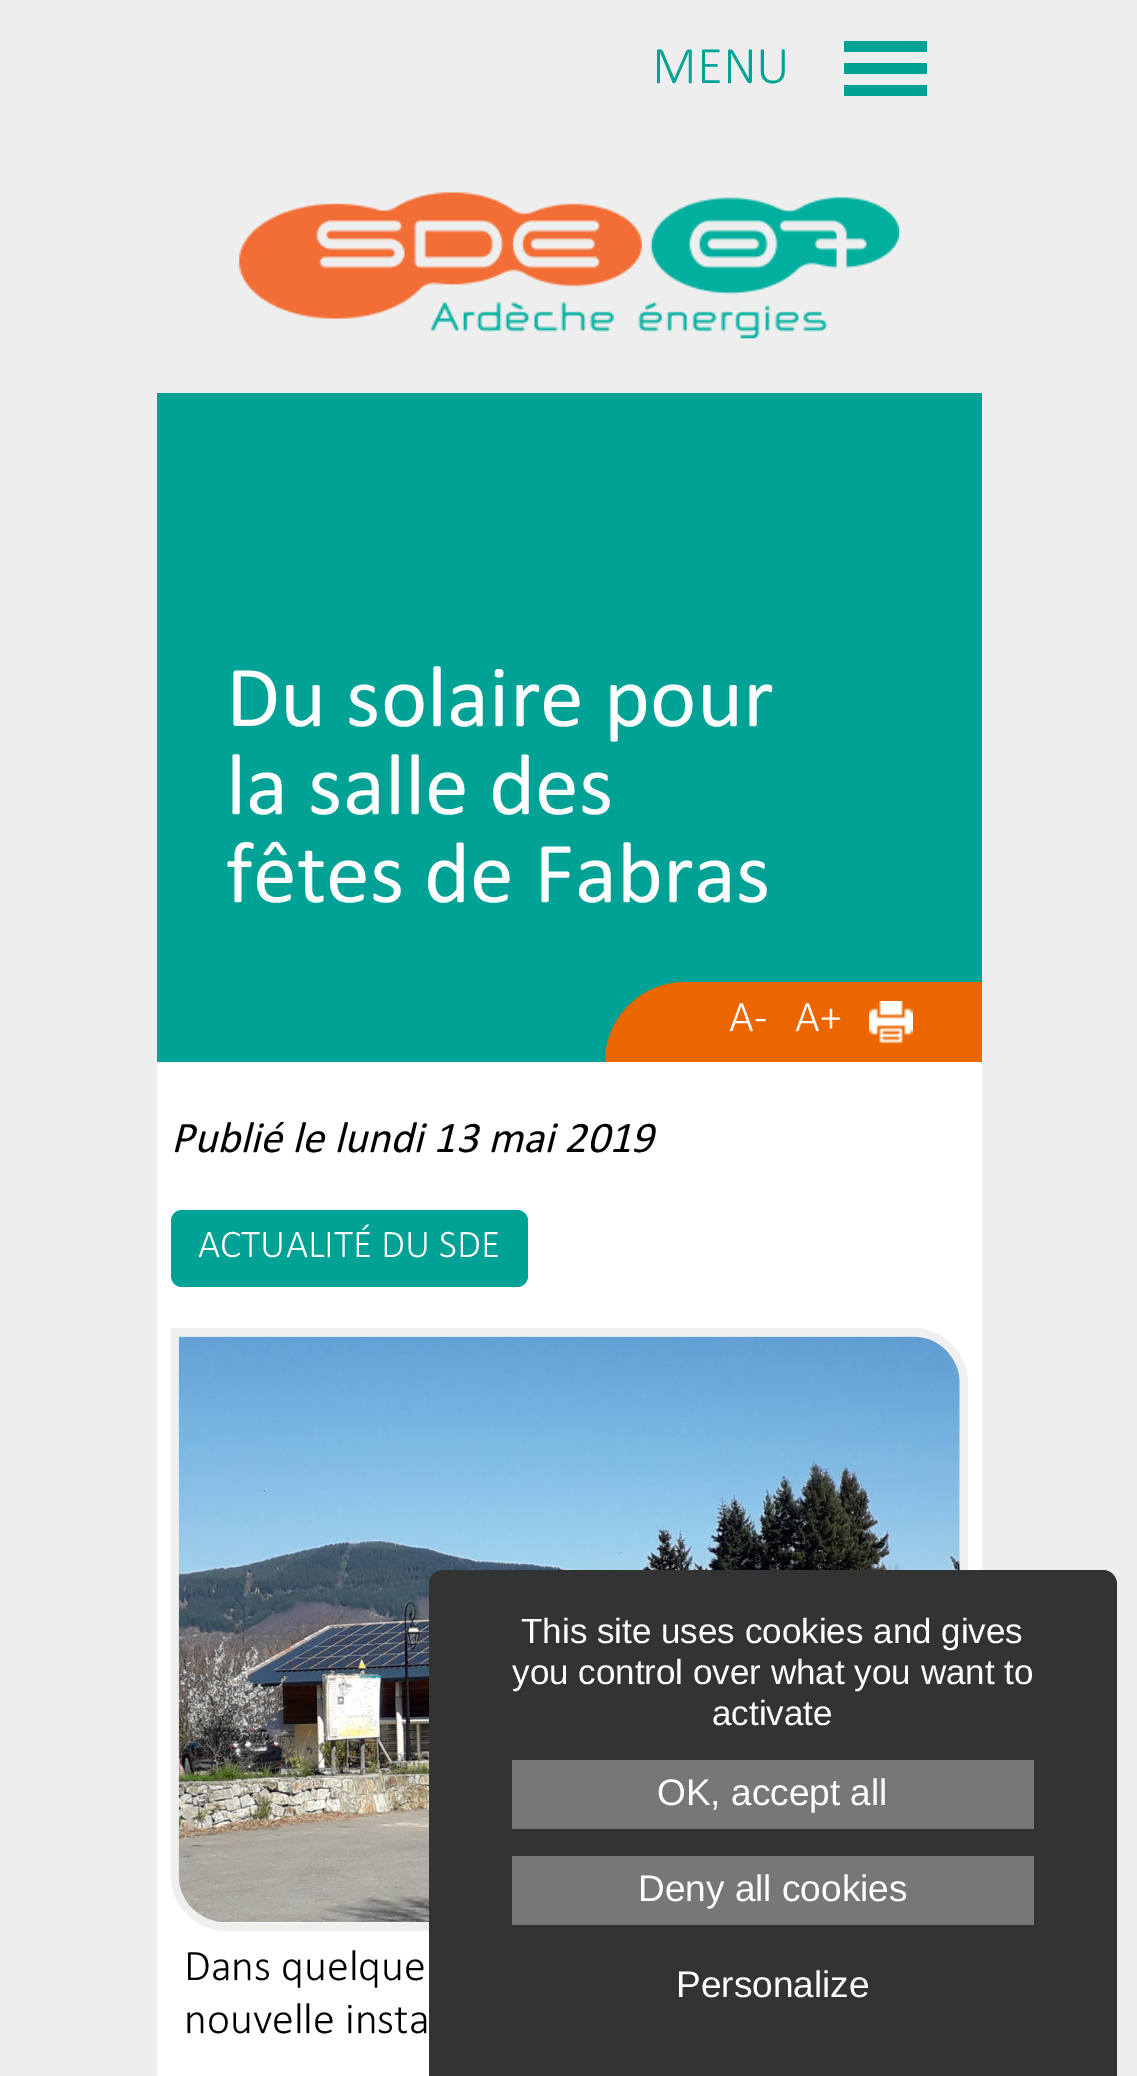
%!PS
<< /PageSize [1137 2076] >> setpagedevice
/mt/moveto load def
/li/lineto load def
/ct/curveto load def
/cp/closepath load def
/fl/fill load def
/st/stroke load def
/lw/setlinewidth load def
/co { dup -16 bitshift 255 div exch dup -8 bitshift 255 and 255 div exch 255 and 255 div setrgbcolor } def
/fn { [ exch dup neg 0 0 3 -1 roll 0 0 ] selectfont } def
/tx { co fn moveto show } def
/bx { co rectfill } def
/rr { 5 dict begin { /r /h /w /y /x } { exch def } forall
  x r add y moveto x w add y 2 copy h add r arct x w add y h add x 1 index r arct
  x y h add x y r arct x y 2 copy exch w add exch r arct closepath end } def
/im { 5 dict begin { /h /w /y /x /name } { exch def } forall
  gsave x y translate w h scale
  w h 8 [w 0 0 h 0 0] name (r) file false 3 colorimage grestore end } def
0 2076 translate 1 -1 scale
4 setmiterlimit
0 0 1137 2076 16#EEEEEE bx
157 393 825 669 16#00A295 bx
844 63 83 11 16#00A295 bx
844 41 83 11 16#00A295 bx
844 85 83 11 16#00A295 bx
(media/1.raw) 239 192 661 147 im
157 1062 825 1014 16#FFFFFF bx
16#EC6600 co
685 982 mt 982 982 li 982 1062 li 605 1062 li 605 1018 641 982 685 982 ct cp fl
(media/2.raw) 869 1001 44 43 im
16#00A295 co
171 1210 357 77 11 rr fl
16#EFEFEF co
8 lw
175 1332 mt 913 1332 li 941 1332 964 1355 964 1383 ct 964 1927 li 226 1927 li 198 1927 175 1904 175 1876 ct cp st
(media/3.raw) 178 1336 782 587 im
16#333333 co
443 1570 mt 1103 1570 li 1110.5 1570 1117 1576.5 1117 1584 ct 1117 2076 li 429 2076 li 429 1584 li 429 1576.5 435.5 1570 443 1570 ct cp fl
512 1760 522 69 16#777777 bx
512 1856 522 69 16#777777 bx
(MENU) 652 83 /Calibri-Light 53 16#00A295 tx
(Du solaire pour) 226 726 /Calibri-Regular 88 16#FFFFFF tx
(la salle des) 226 814 /Calibri-Regular 88 16#FFFFFF tx
(fêtes de Fabras) 226 902 /Calibri-Regular 88 16#FFFFFF tx
(A-) 729 1031 /Calibri-Light 44 16#FFFFFF tx
(A+) 795 1031 /Calibri-Light 44 16#FFFFFF tx
(Publié le lundi 13 mai 2019) 171 1152 /Calibri-Italic 44 16#000000 tx
(ACTUALITÉ DU SDE) 198 1257 /Calibri-Light 39.5 16#FFFFFF tx
(Dans quelque) 184 1980 /Calibri-Light 44 16#000000 tx
(nouvelle insta) 184 2033 /Calibri-Light 44 16#000000 tx
(This site uses cookies and gives) 521 1643 /LiberationSans-Regular 35 16#FFFFFF tx
(you control over what you want to) 512 1684 /LiberationSans-Regular 35 16#FFFFFF tx
(activate) 712 1725 /LiberationSans-Regular 35 16#FFFFFF tx
(OK, accept all) 657 1805 /LiberationSans-Regular 37 16#FFFFFF tx
(Deny all cookies) 638 1901 /LiberationSans-Regular 37 16#FFFFFF tx
(Personalize) 676 1997 /LiberationSans-Regular 37 16#FFFFFF tx
showpage
